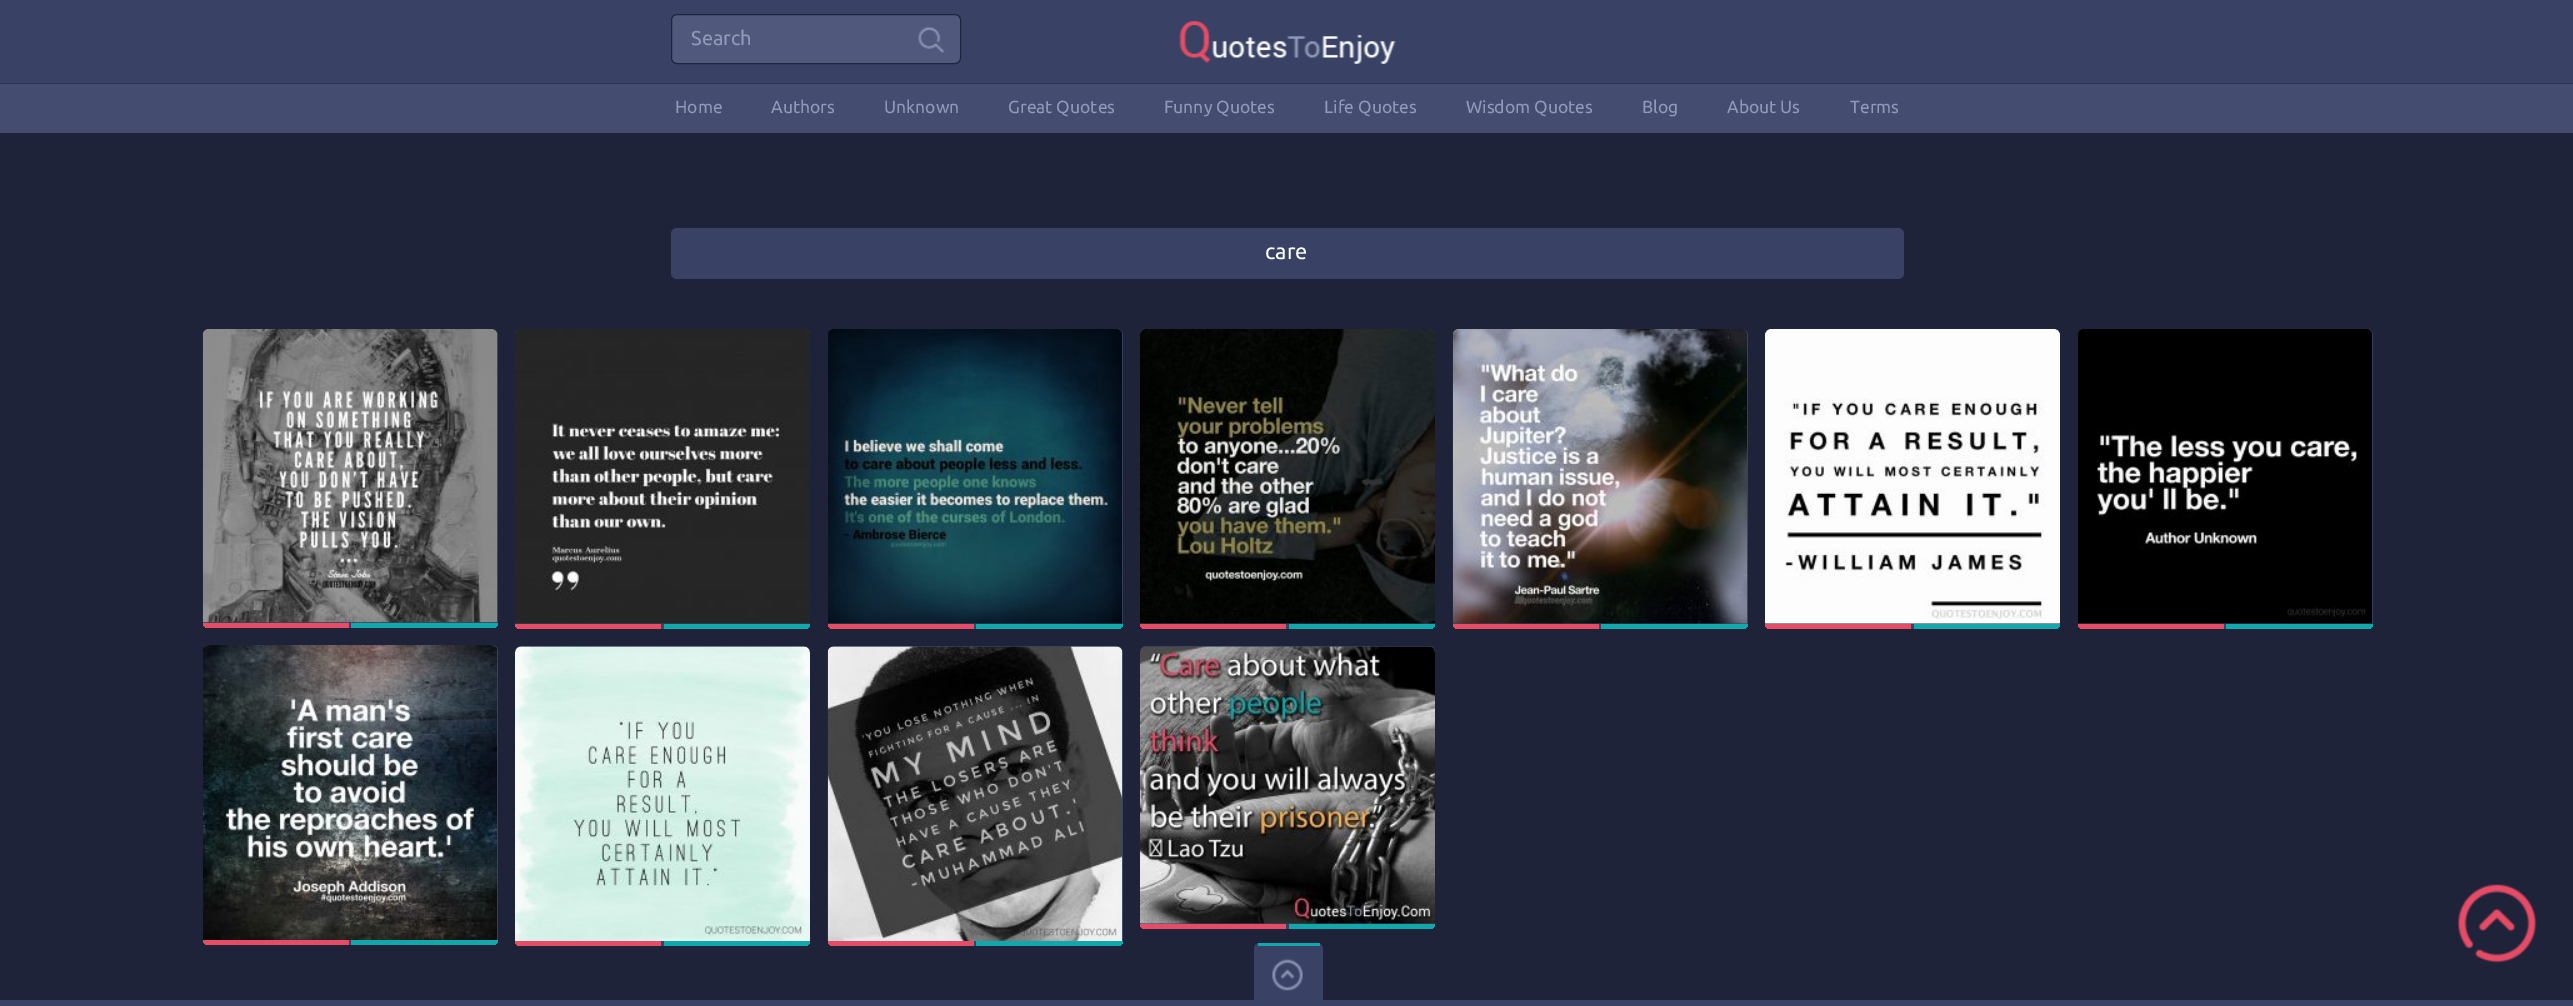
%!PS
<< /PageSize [2573 1006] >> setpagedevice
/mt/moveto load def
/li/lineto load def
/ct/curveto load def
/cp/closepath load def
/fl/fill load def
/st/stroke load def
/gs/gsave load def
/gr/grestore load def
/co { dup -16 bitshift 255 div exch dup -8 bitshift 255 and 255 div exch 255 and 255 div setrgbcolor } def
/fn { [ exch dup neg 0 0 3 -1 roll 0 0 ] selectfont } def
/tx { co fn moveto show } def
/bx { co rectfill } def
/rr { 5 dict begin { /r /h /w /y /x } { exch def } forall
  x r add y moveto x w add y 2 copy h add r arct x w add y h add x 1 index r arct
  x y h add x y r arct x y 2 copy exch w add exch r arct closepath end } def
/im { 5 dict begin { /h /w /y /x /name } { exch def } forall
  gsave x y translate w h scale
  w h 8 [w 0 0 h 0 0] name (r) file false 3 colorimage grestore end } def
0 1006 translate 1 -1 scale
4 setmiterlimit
0 0 2573 1006 16#1E233A bx
0 0 2573 83 16#394264 bx
16#50597B co
671.5 14.5 289 49 5.5 rr gs fl gr
16#1F253D co
st
(media/1.raw) 918 27 27 26 im
(media/2.raw) 1179 21 217 43 im
0 84 2573 49 16#444D70 bx
0 83 2573 1 16#2F3552 bx
16#394264 co
671 228 1233 51 6 rr fl
203 329 295 299 6 rr fl
(media/3.raw) 202 329 296 294 im
gs
203 329 295 299 6 rr clip newpath
203 623 146 5 16#E64C65 bx
351 623 147 5 16#11A8AB bx
gr
515 329 295 300 6 rr fl
(media/4.raw) 515 329 295 295 im
gs
515 329 295 300 6 rr clip newpath
515 624 146 5 16#E64C65 bx
664 624 146 5 16#11A8AB bx
gr
828 329 295 300 6 rr fl
(media/5.raw) 828 329 295 295 im
gs
828 329 295 300 6 rr clip newpath
828 624 146 5 16#E64C65 bx
976 624 147 5 16#11A8AB bx
gr
1140 329 295 300 6 rr fl
(media/6.raw) 1140 329 295 295 im
gs
1140 329 295 300 6 rr clip newpath
1140 624 146 5 16#E64C65 bx
1289 624 146 5 16#11A8AB bx
gr
1453 329 295 300 6 rr fl
(media/7.raw) 1452 329 296 295 im
gs
1453 329 295 300 6 rr clip newpath
1453 624 146 5 16#E64C65 bx
1601 624 147 5 16#11A8AB bx
gr
1765 329 295 300 6 rr fl
(media/8.raw) 1765 329 295 295 im
gs
1765 329 295 300 6 rr clip newpath
1765 624 146 5 16#E64C65 bx
1914 624 146 5 16#11A8AB bx
gr
2078 329 295 300 6 rr fl
(media/9.raw) 2078 329 295 295 im
gs
2078 329 295 300 6 rr clip newpath
2078 624 146 5 16#E64C65 bx
2226 624 147 5 16#11A8AB bx
gr
203 645 295 300 6 rr fl
(media/10.raw) 203 645 295 295 im
gs
203 645 295 300 6 rr clip newpath
203 940 146 5 16#E64C65 bx
351 940 147 5 16#11A8AB bx
gr
515 646 295 300 6 rr fl
(media/11.raw) 515 646 295 295 im
gs
515 646 295 300 6 rr clip newpath
515 941 146 5 16#E64C65 bx
664 941 146 5 16#11A8AB bx
gr
828 646 295 300 6 rr fl
(media/12.raw) 827 646 296 295 im
gs
828 646 295 300 6 rr clip newpath
828 941 146 5 16#E64C65 bx
976 941 147 5 16#11A8AB bx
gr
1140 646 295 283 6 rr fl
(media/13.raw) 1140 646 295 278 im
gs
1140 646 295 283 6 rr clip newpath
1140 924 146 5 16#E64C65 bx
1289 924 146 5 16#11A8AB bx
gr
(media/14.raw) 2457 884 80 79 im
0 1000 2573 6 16#394264 bx
1260 943 mt 1317 943 li 1320.5 943 1323 945.5 1323 949 ct 1323 1000 li 1254 1000 li 1254 949 li 1254 945.5 1256.5 943 1260 943 ct cp fl
(media/15.raw) 1272 959 31 32 im
1258 943 62 3 16#11A8AB bx
(Search) 691 45 /Ubuntu-Regular 20 16#9099B7 tx
(Home) 675 113 /Ubuntu-Regular 17.5 16#9099B7 tx
(Authors) 771 113 /Ubuntu-Regular 17.5 16#9099B7 tx
(Unknown) 884 113 /Ubuntu-Regular 17.5 16#9099B7 tx
(Great Quotes) 1008 113 /Ubuntu-Regular 17.5 16#9099B7 tx
(Funny Quotes) 1164 113 /Ubuntu-Regular 17.5 16#9099B7 tx
(Life Quotes) 1324 113 /Ubuntu-Regular 17.5 16#9099B7 tx
(Wisdom Quotes) 1466 113 /Ubuntu-Regular 17.5 16#9099B7 tx
(Blog) 1642 113 /Ubuntu-Regular 17.5 16#9099B7 tx
(About Us) 1727 113 /Ubuntu-Regular 17.5 16#9099B7 tx
(Terms) 1850 113 /Ubuntu-Regular 17.5 16#9099B7 tx
(care) 1265 259 /Ubuntu-Regular 22 16#FFFFFF tx
showpage
